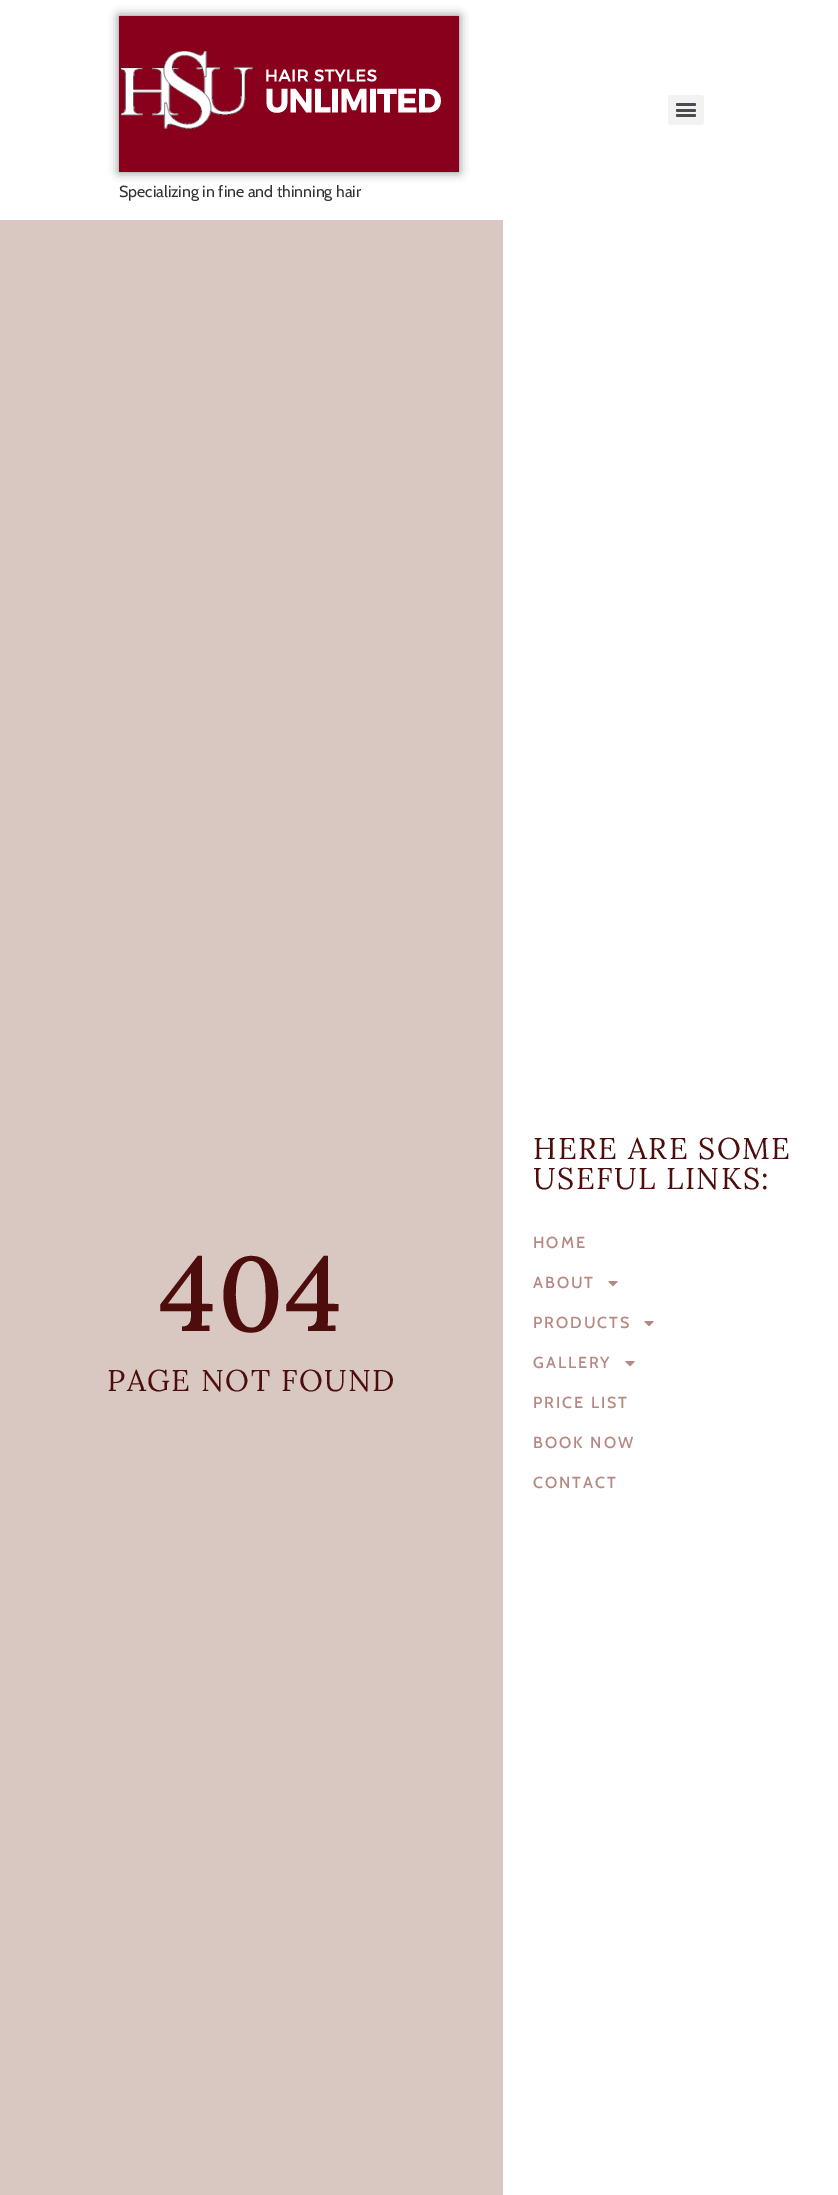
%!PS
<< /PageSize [838 2195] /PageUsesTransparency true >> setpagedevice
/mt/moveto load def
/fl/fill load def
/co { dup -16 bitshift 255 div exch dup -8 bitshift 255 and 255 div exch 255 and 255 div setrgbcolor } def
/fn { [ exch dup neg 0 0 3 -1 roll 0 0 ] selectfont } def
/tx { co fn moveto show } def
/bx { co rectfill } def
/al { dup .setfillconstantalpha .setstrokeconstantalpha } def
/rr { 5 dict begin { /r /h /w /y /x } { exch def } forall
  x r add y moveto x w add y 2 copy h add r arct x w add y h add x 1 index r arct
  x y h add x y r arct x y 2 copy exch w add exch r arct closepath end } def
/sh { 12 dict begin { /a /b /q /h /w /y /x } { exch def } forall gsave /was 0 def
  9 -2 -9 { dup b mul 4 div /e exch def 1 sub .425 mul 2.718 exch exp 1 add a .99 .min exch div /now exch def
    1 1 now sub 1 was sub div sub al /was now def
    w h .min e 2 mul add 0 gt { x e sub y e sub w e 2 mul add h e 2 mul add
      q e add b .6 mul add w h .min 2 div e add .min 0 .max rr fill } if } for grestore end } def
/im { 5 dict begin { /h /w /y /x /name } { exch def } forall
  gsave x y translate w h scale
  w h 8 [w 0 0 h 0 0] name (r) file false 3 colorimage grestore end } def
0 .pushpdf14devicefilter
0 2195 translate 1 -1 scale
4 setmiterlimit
0 0 838 2195 16#FFFFFF bx
16#F2F2F2 co
668 95 36 30 3 rr fl
16#494C4F co
676 109 20 3 1.5 rr fl
676 103 20 3 1.5 rr fl
676 114 20 3 1.5 rr fl
16#000000 co
119 16 340 156 0 5 .5 sh
(media/1.raw) 119 16 340 156 im
0 220 503 1975 16#D9C7C1 bx
(media/2.raw) 608 1281 10 6 im
(media/2.raw) 644 1321 10 6 im
(media/2.raw) 625 1361 10 6 im
(Specializing in fine and thinning hair) 119 197 /Cabin-Regular 16 16#333333 tx
/Lora-Medium 105 fn
16#4C0D0C co
159 1331 mt 1.5 0 (404) ashow
/Lora-Regular 30 fn
107 1391 mt 1.5 0 (PAGE NOT FOUND) ashow
533 1159 mt 1.5 0 (HERE ARE SOME) ashow
533 1189 mt 1.5 0 (USEFUL LINKS:) ashow
/Cabin-Medium 16 fn
16#B68881 co
533 1248 mt 2 0 (HOME) ashow
533 1288 mt 2 0 (ABOUT) ashow
533 1328 mt 2 0 (PRODUCTS) ashow
533 1368 mt 2 0 (GALLERY) ashow
533 1408 mt 2 0 (PRICE LIST) ashow
533 1448 mt 2 0 (BOOK NOW) ashow
533 1488 mt 2 0 (CONTACT) ashow
.poppdf14devicefilter showpage
